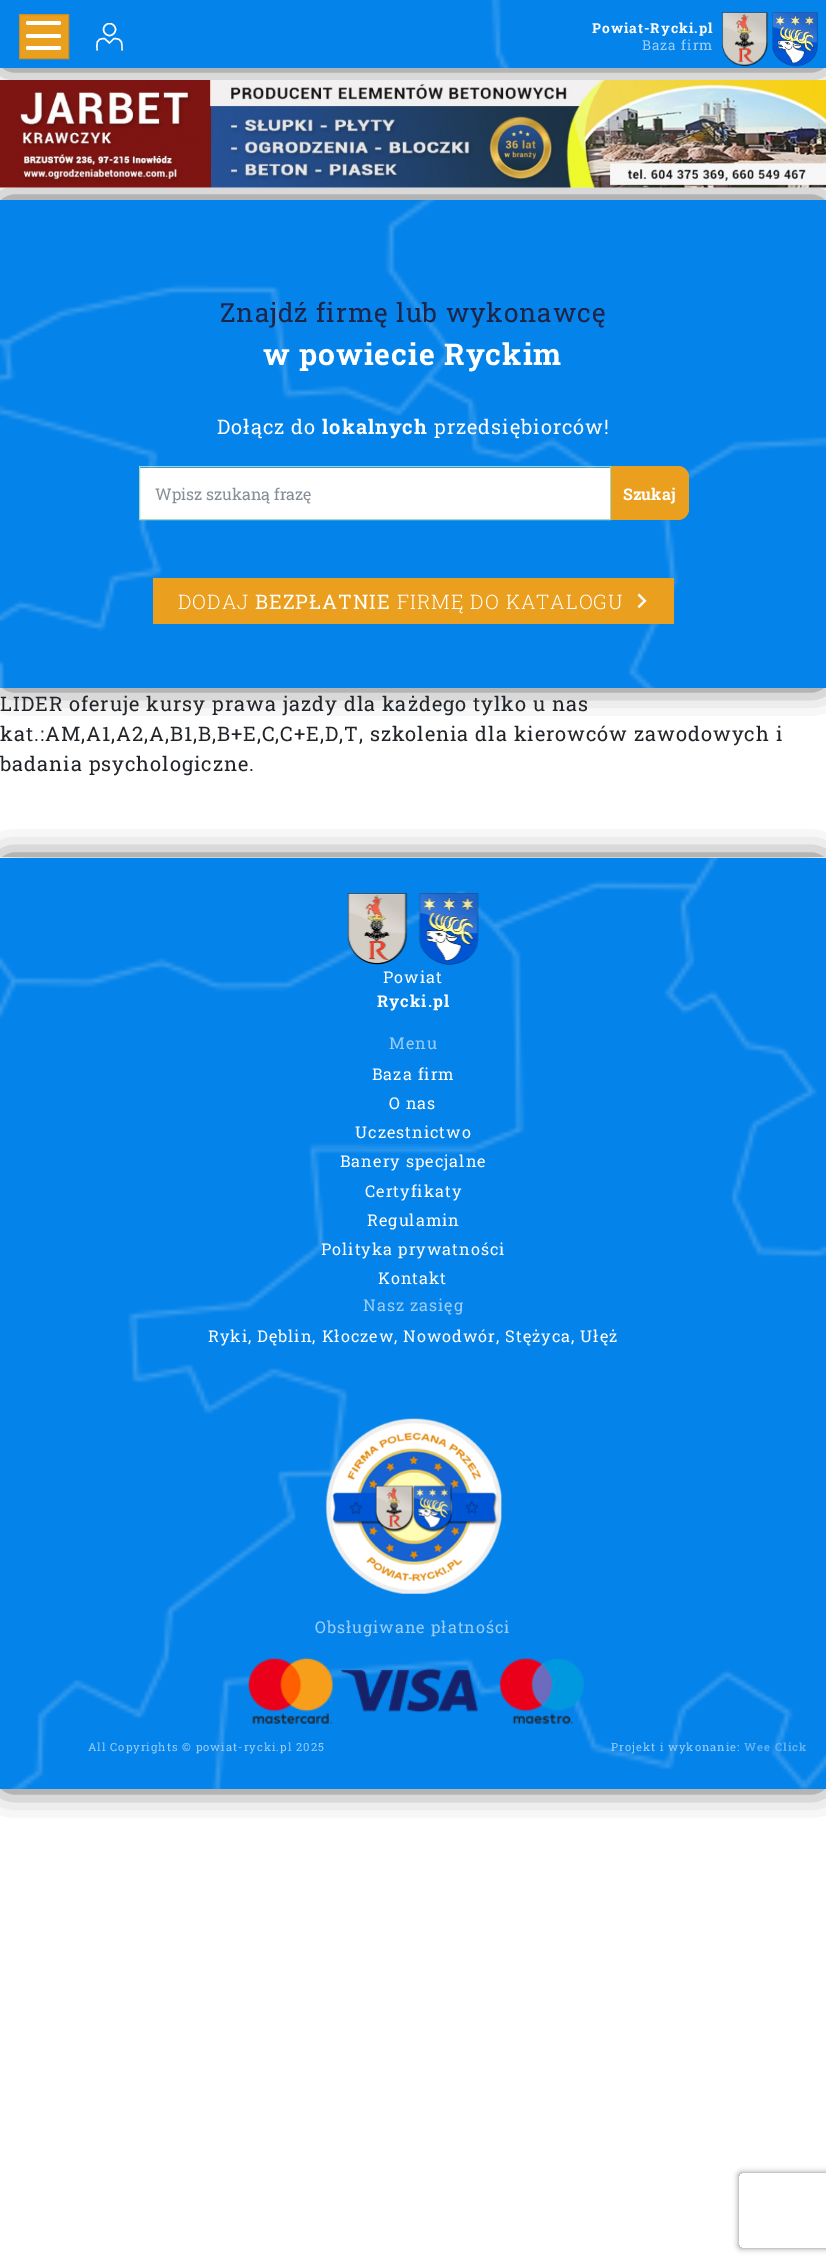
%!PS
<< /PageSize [826 2264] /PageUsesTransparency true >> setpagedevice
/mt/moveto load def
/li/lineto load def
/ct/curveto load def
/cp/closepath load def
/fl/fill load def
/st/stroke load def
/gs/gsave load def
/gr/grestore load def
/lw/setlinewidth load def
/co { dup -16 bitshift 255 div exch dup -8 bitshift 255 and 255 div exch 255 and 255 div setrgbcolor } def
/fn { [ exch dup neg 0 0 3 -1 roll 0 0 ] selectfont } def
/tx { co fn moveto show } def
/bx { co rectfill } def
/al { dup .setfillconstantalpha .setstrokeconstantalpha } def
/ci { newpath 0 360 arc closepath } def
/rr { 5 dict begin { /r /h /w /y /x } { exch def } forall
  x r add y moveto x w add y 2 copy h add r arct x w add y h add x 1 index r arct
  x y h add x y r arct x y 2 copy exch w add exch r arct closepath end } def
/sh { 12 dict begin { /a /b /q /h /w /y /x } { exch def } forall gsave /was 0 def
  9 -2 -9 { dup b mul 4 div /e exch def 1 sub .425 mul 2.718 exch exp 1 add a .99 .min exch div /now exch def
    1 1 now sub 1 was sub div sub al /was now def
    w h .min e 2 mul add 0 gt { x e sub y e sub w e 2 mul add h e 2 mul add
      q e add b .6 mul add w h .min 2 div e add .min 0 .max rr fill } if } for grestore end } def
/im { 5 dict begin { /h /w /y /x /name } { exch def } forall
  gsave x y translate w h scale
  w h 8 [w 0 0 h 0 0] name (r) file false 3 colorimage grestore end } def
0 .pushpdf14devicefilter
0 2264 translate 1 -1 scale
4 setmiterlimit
0 0 826 2264 16#FFFFFF bx
16#000000 co
6 6 814 55 0 15.5 1 sh
0 0 826 68 16#0483EA bx
(media/1.raw) 491 0 19 68 im
16#EA9F1E co
19.5 14.5 mt 68.5 14.5 li 68.5 58.5 li 19.5 58.5 li cp gs fl gr
16#D38F1B co
st
16#FFFFFF co
26 34 35 4 2 rr fl
26 21 35 4 2 rr fl
26 46 35 4 2 rr fl
gs
95 23 30 30 rectclip
1.4 lw
109.5 29.5 6 ci st
gr
1.4 lw
97 50.5 mt 97 43.5 95.5 38.5 104.5 38.5 ct 109.5 43 li 114 38.5 li 123 38.5 122 43.5 122 50.5 ct st
(media/2.raw) 721 12 48 55 im
(media/3.raw) 772 12 46 55 im
16#000000 co
6 206 814 475 0 15.5 1 sh
(media/4.raw) 0 80 826 108 im
0 200 826 488 16#0483EA bx
(media/5.raw) 0 200 826 488 im
140 468 470 51 16#FFFFFF bx
16#A4D9BD co
1 lw
139.5 466.5 471 53 rectstroke
16#EA9F1E co
611 466 mt 678 466 li 684 466 689 471 689 477 ct 689 509 li 689 515 684 520 678 520 ct 611 520 li cp fl
153 578 521 46 16#EA9F1E bx
(media/6.raw) 637 593 10 16 im
16#000000 co
6 864 814 919 0 15.5 1 sh
0 858 826 931 16#0483EA bx
(media/7.raw) 0 857 826 932 im
(media/8.raw) 347 893 61 72 im
(media/9.raw) 418 893 61 72 im
(media/10.raw) 325 1418 177 176 im
(media/11.raw) 248 1658 336 66 im
gs
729 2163 mt 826 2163 li 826 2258 li 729 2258 li cp 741.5 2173 mt 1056.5 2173 li 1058 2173 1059 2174 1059 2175.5 ct 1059 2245.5 li 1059 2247 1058 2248 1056.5 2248 ct 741.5 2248 li 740 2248 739 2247 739 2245.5 ct 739 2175.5 li 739 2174 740 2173 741.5 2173 ct cp eoclip newpath
16#808080 co
739 2173 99 75 2.5 3 1 sh
gr
/RobotoSlab-Bold 13.75 fn
16#FFFFFF co
592 33 mt 1 0 (Powiat-Rycki.pl) ashow
/RobotoSlab-Regular 13.75 fn
16#9BCDF7 co
642 50 mt 1 0 (Baza firm) ashow
/RobotoSlab-Regular 26.25 fn
16#1F2449 co
220 322 mt 1 0 (Znajdź firmę lub wykonawcę) ashow
/RobotoSlab-Bold 30 fn
16#FFFFFF co
263 365 mt 1 0 (w powiecie Ryckim) ashow
/RobotoSlab-Regular 20 fn
217 434 mt 1 0 (Dołącz do) ashow
/RobotoSlab-Bold 20 fn
322 434 mt 1 0 (lokalnych) ashow
/RobotoSlab-Regular 20 fn
434 434 mt 1 0 (przedsiębiorców!) ashow
(Wpisz szukaną frazę) 155 500 /RobotoSlab-Regular 16 16#868E96 tx
(Szukaj) 623 500 /RobotoSlab-Bold 16 16#FFFFFF tx
/RobotoSlab-Light 20 fn
178 609 mt 1 0 (DODAJ) ashow
/RobotoSlab-Regular 20 fn
255 609 mt 1 0 (BEZPŁATNIE) ashow
/RobotoSlab-Light 20 fn
397 609 mt 1 0 (FIRMĘ DO KATALOGU) ashow
/RobotoSlab-Regular 20 fn
16#212529 co
0 711 mt 1 0 (LIDER oferuje kursy prawa jazdy dla każdego tylko u nas) ashow
0 741 mt 1 0 (kat.:AM,A1,A2,A,B1,B,B+E,C,C+E,D,T, szkolenia dla kierowców zawodowych i) ashow
0 771 mt 1 0 (badania psychologiczne.) ashow
/RobotoSlab-Regular 16.25 fn
16#FFFFFF co
383 983 mt 1 0 (Powiat) ashow
/RobotoSlab-Bold 16.25 fn
377 1007 mt 1 0 (Rycki.pl) ashow
/RobotoSlab-Regular 16.25 fn
16#9BCDF7 co
389 1049 mt 1 0 (Menu) ashow
16#FFFFFF co
372 1080 mt 1 0 (Baza firm) ashow
389 1109 mt 1 0 (O nas) ashow
355 1138 mt 1 0 (Uczestnictwo) ashow
340 1167 mt 1 0 (Banery specjalne) ashow
365 1197 mt 1 0 (Certyfikaty) ashow
367 1226 mt 1 0 (Regulamin) ashow
321 1255 mt 1 0 (Polityka prywatności) ashow
378 1284 mt 1 0 (Kontakt) ashow
16#9BCDF7 co
363 1311 mt 1 0 (Nasz zasięg) ashow
16#FFFFFF co
208 1342 mt 1 0 (Ryki, Dęblin, Kłoczew, Nowodwór, Stężyca, Ułęż) ashow
16#9BCDF7 co
315 1633 mt 1 0 (Obsługiwane płatności) ashow
/RobotoSlab-Regular 11.25 fn
88 1751 mt 1 0 (All Copyrights © powiat-rycki.pl 2025) ashow
611 1751 mt 1 0 (Projekt i wykonanie:) ashow
/RobotoSlab-Bold 11.25 fn
16#61B1F2 co
744 1751 mt 1 0 (Wee Click) ashow
.poppdf14devicefilter showpage
